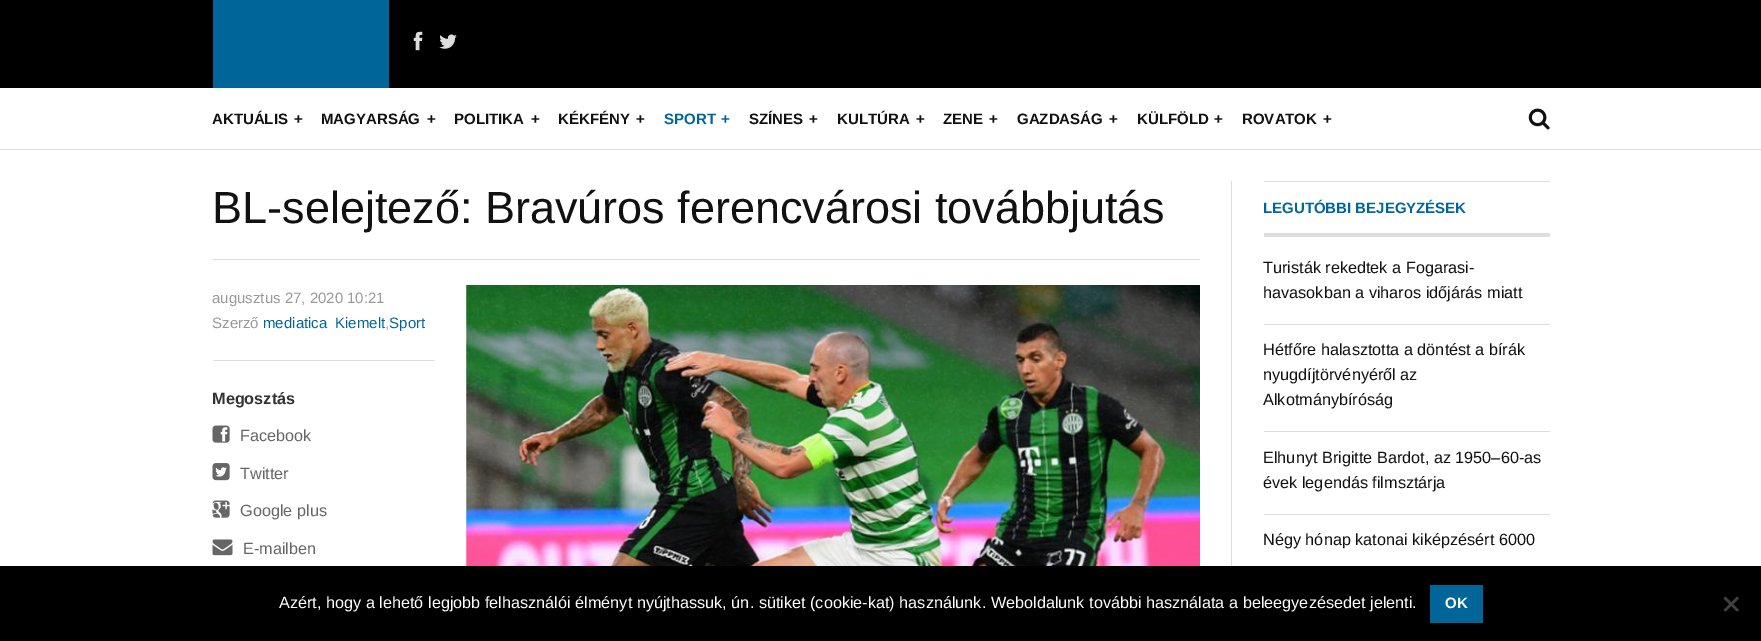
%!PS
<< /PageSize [1761 641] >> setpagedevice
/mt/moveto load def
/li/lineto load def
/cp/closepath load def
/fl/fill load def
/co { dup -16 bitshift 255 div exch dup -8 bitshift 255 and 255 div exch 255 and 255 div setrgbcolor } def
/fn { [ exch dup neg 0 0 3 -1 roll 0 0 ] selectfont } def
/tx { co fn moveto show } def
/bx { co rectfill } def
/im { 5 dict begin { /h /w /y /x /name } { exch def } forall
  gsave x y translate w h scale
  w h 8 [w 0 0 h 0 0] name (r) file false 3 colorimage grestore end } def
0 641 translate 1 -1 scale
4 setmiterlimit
0 0 1761 641 16#FFFFFF bx
0 0 1761 88 16#000000 bx
213 0 176 88 16#006699 bx
(media/1.raw) 413 31 10 20 im
(media/2.raw) 439 34 18 15 im
0 149 1761 1 16#DDDDDD bx
(media/3.raw) 1528 108 22 22 im
213 259 987 1 16#DDDDDD bx
213 360 222 1 16#DDDDDD bx
(media/4.raw) 212 425 18 18 im
(media/5.raw) 212 463 18 18 im
(media/6.raw) 212 500 18 18 im
(media/7.raw) 212 539 21 17 im
(media/8.raw) 466 285 734 281 im
1231 181 1 385 16#DDDDDD bx
1264 181 286 1 16#DDDDDD bx
1264 233 286 4 16#DDDDDD bx
1264 324 286 1 16#DDDDDD bx
1264 431 286 1 16#DDDDDD bx
1264 514 286 1 16#DDDDDD bx
0 566 1761 75 16#000000 bx
1430 585 53 38 16#006699 bx
16#404040 co
1737 596.5 mt 1739 598.5 li 1725.5 611.5 li 1723.5 610 li cp fl
1723.5 598.5 mt 1725.5 596.5 li 1739 610 li 1737 611.5 li cp fl
(AKTUÁLIS) 212 124 /LiberationSans-Bold 15 16#111111 tx
(+) 294 124 /LiberationSans-Bold 15 16#111111 tx
(MAGYARSÁG) 321 124 /LiberationSans-Bold 15 16#111111 tx
(+) 427 124 /LiberationSans-Bold 15 16#111111 tx
(POLITIKA) 454 124 /LiberationSans-Bold 15 16#111111 tx
(+) 531 124 /LiberationSans-Bold 15 16#111111 tx
(KÉKFÉNY) 558 124 /LiberationSans-Bold 15 16#111111 tx
(+) 636 124 /LiberationSans-Bold 15 16#111111 tx
(SPORT) 664 124 /LiberationSans-Bold 15 16#006699 tx
(+) 721 124 /LiberationSans-Bold 15 16#006699 tx
(SZÍNES) 749 124 /LiberationSans-Bold 15 16#111111 tx
(+) 809 124 /LiberationSans-Bold 15 16#111111 tx
(KULTÚRA) 837 124 /LiberationSans-Bold 15 16#111111 tx
(+) 916 124 /LiberationSans-Bold 15 16#111111 tx
(ZENE) 943 124 /LiberationSans-Bold 15 16#111111 tx
(+) 989 124 /LiberationSans-Bold 15 16#111111 tx
(GAZDASÁG) 1017 124 /LiberationSans-Bold 15 16#111111 tx
(+) 1109 124 /LiberationSans-Bold 15 16#111111 tx
(KÜLFÖLD) 1137 124 /LiberationSans-Bold 15 16#111111 tx
(+) 1214 124 /LiberationSans-Bold 15 16#111111 tx
(ROVATOK) 1242 124 /LiberationSans-Bold 15 16#111111 tx
(+) 1323 124 /LiberationSans-Bold 15 16#111111 tx
(BL-selejtező: Bravúros ferencvárosi továbbjutás) 212 223 /LiberationSans-Regular 45 16#111111 tx
(augusztus 27, 2020 10:21) 212 303 /LiberationSans-Regular 15 16#999999 tx
(Szerző) 212 328 /LiberationSans-Regular 15 16#999999 tx
(mediatica) 263 328 /LiberationSans-Regular 15 16#006699 tx
(Kiemelt Sport) 335 328 /LiberationSans-Regular 15 16#006699 tx
(,) 385 328 /LiberationSans-Regular 15 16#999999 tx
(Megosztás) 212 404 /LiberationSans-Bold 16.25 16#333333 tx
(Facebook) 240 441 /LiberationSans-Regular 16.25 16#666666 tx
(Twitter) 240 479 /LiberationSans-Regular 16.25 16#666666 tx
(Google plus) 240 516 /LiberationSans-Regular 16.25 16#666666 tx
(E-mailben) 243 554 /LiberationSans-Regular 16.25 16#666666 tx
(LEGUTÓBBI BEJEGYZÉSEK) 1263 213 /LiberationSans-Bold 15 16#006699 tx
(Turisták rekedtek a Fogarasi-) 1263 273 /LiberationSans-Regular 16.25 16#111111 tx
(havasokban a viharos időjárás miatt) 1263 298 /LiberationSans-Regular 16.25 16#111111 tx
(Hétfőre halasztotta a döntést a bírák) 1263 355 /LiberationSans-Regular 16.25 16#111111 tx
(nyugdíjtörvényéről az) 1263 380 /LiberationSans-Regular 16.25 16#111111 tx
(Alkotmánybíróság) 1263 405 /LiberationSans-Regular 16.25 16#111111 tx
(Elhunyt Brigitte Bardot, az 1950–60-as) 1263 463 /LiberationSans-Regular 16.25 16#111111 tx
(évek legendás filmsztárja) 1263 488 /LiberationSans-Regular 16.25 16#111111 tx
(Négy hónap katonai kiképzésért 6000) 1263 545 /LiberationSans-Regular 16.25 16#111111 tx
(Azért, hogy a lehető legjobb felhasználói élményt nyújthassuk, ún. sütiket \(cookie-kat\) használunk. Weboldalunk további használata a beleegyezésedet jelenti.) 279 608 /LiberationSans-Regular 16.25 16#FFFFFF tx
(OK) 1445 608 /LiberationSans-Bold 15 16#FFFFFF tx
showpage
